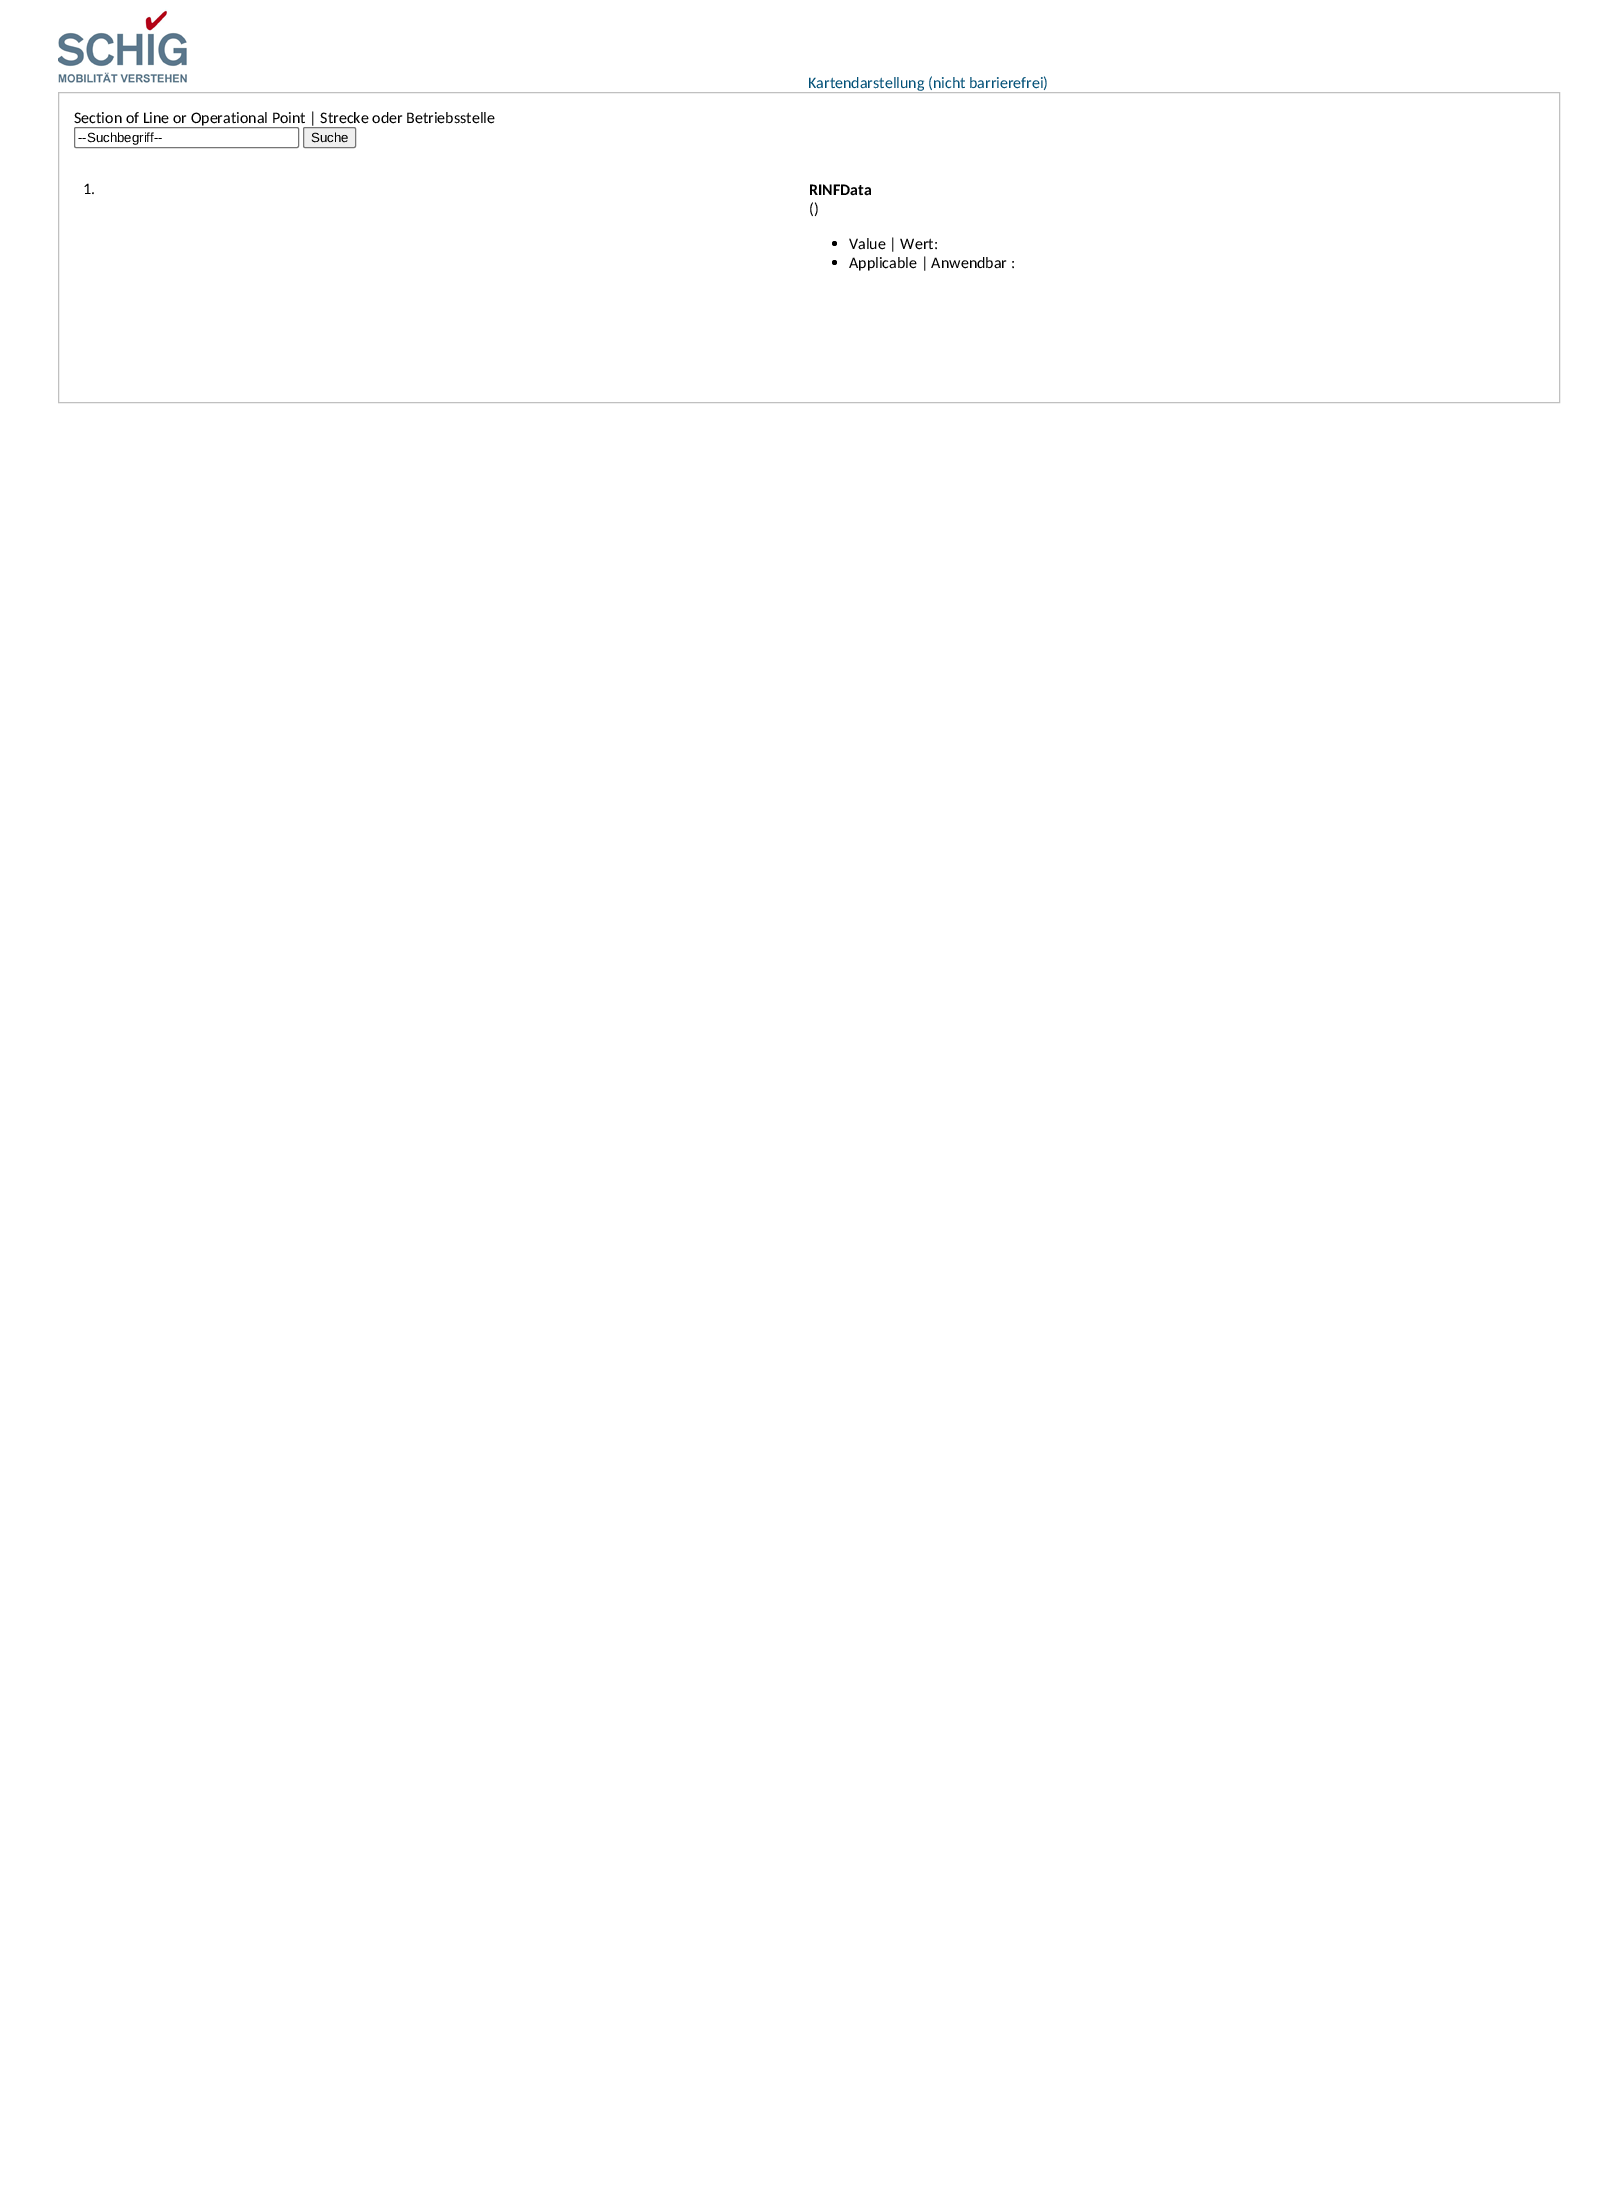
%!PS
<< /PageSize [1609 2208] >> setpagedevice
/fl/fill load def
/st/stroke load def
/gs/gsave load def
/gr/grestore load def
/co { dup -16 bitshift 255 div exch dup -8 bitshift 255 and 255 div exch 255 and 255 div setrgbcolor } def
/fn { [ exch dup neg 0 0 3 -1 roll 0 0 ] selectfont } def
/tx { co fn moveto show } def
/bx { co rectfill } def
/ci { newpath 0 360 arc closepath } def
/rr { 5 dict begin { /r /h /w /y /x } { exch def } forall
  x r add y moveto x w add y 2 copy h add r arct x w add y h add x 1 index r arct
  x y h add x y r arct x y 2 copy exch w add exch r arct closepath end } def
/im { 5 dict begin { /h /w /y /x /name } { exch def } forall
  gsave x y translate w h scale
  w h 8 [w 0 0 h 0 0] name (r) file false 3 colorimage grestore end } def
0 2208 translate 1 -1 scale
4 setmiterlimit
0 0 1609 2208 16#FFFFFF bx
(media/1.raw) 58 9 129 75 im
16#C0C0C0 co
58.5 92.5 1501 310 rectstroke
16#767676 co
74.5 127.5 224 20 1.5 rr st
16#EFEFEF co
303.5 127.5 52 20 1.5 rr gs fl gr
16#767676 co
st
16#000000 co
834.5 243.5 2.5 ci fl
834.5 262.5 2.5 ci fl
(Kartendarstellung \(nicht barrierefrei\)) 808 88 /Carlito-Regular 16 16#025077 tx
(Section of Line or Operational Point | Strecke oder Betriebsstelle) 74 123 /Carlito-Regular 16 16#000000 tx
(--Suchbegriff--) 78 142 /LiberationSans-Regular 13.25 16#000000 tx
(Suche) 311 142 /LiberationSans-Regular 13.25 16#000000 tx
(1.) 83 194 /Carlito-Regular 16 16#000000 tx
(RINFData) 809 195 /Carlito-Bold 16 16#000000 tx
(\(\)) 809 214 /Carlito-Regular 16 16#000000 tx
(Value | Wert:) 849 249 /Carlito-Regular 16 16#000000 tx
(Applicable | Anwendbar :) 849 268 /Carlito-Regular 16 16#000000 tx
showpage
